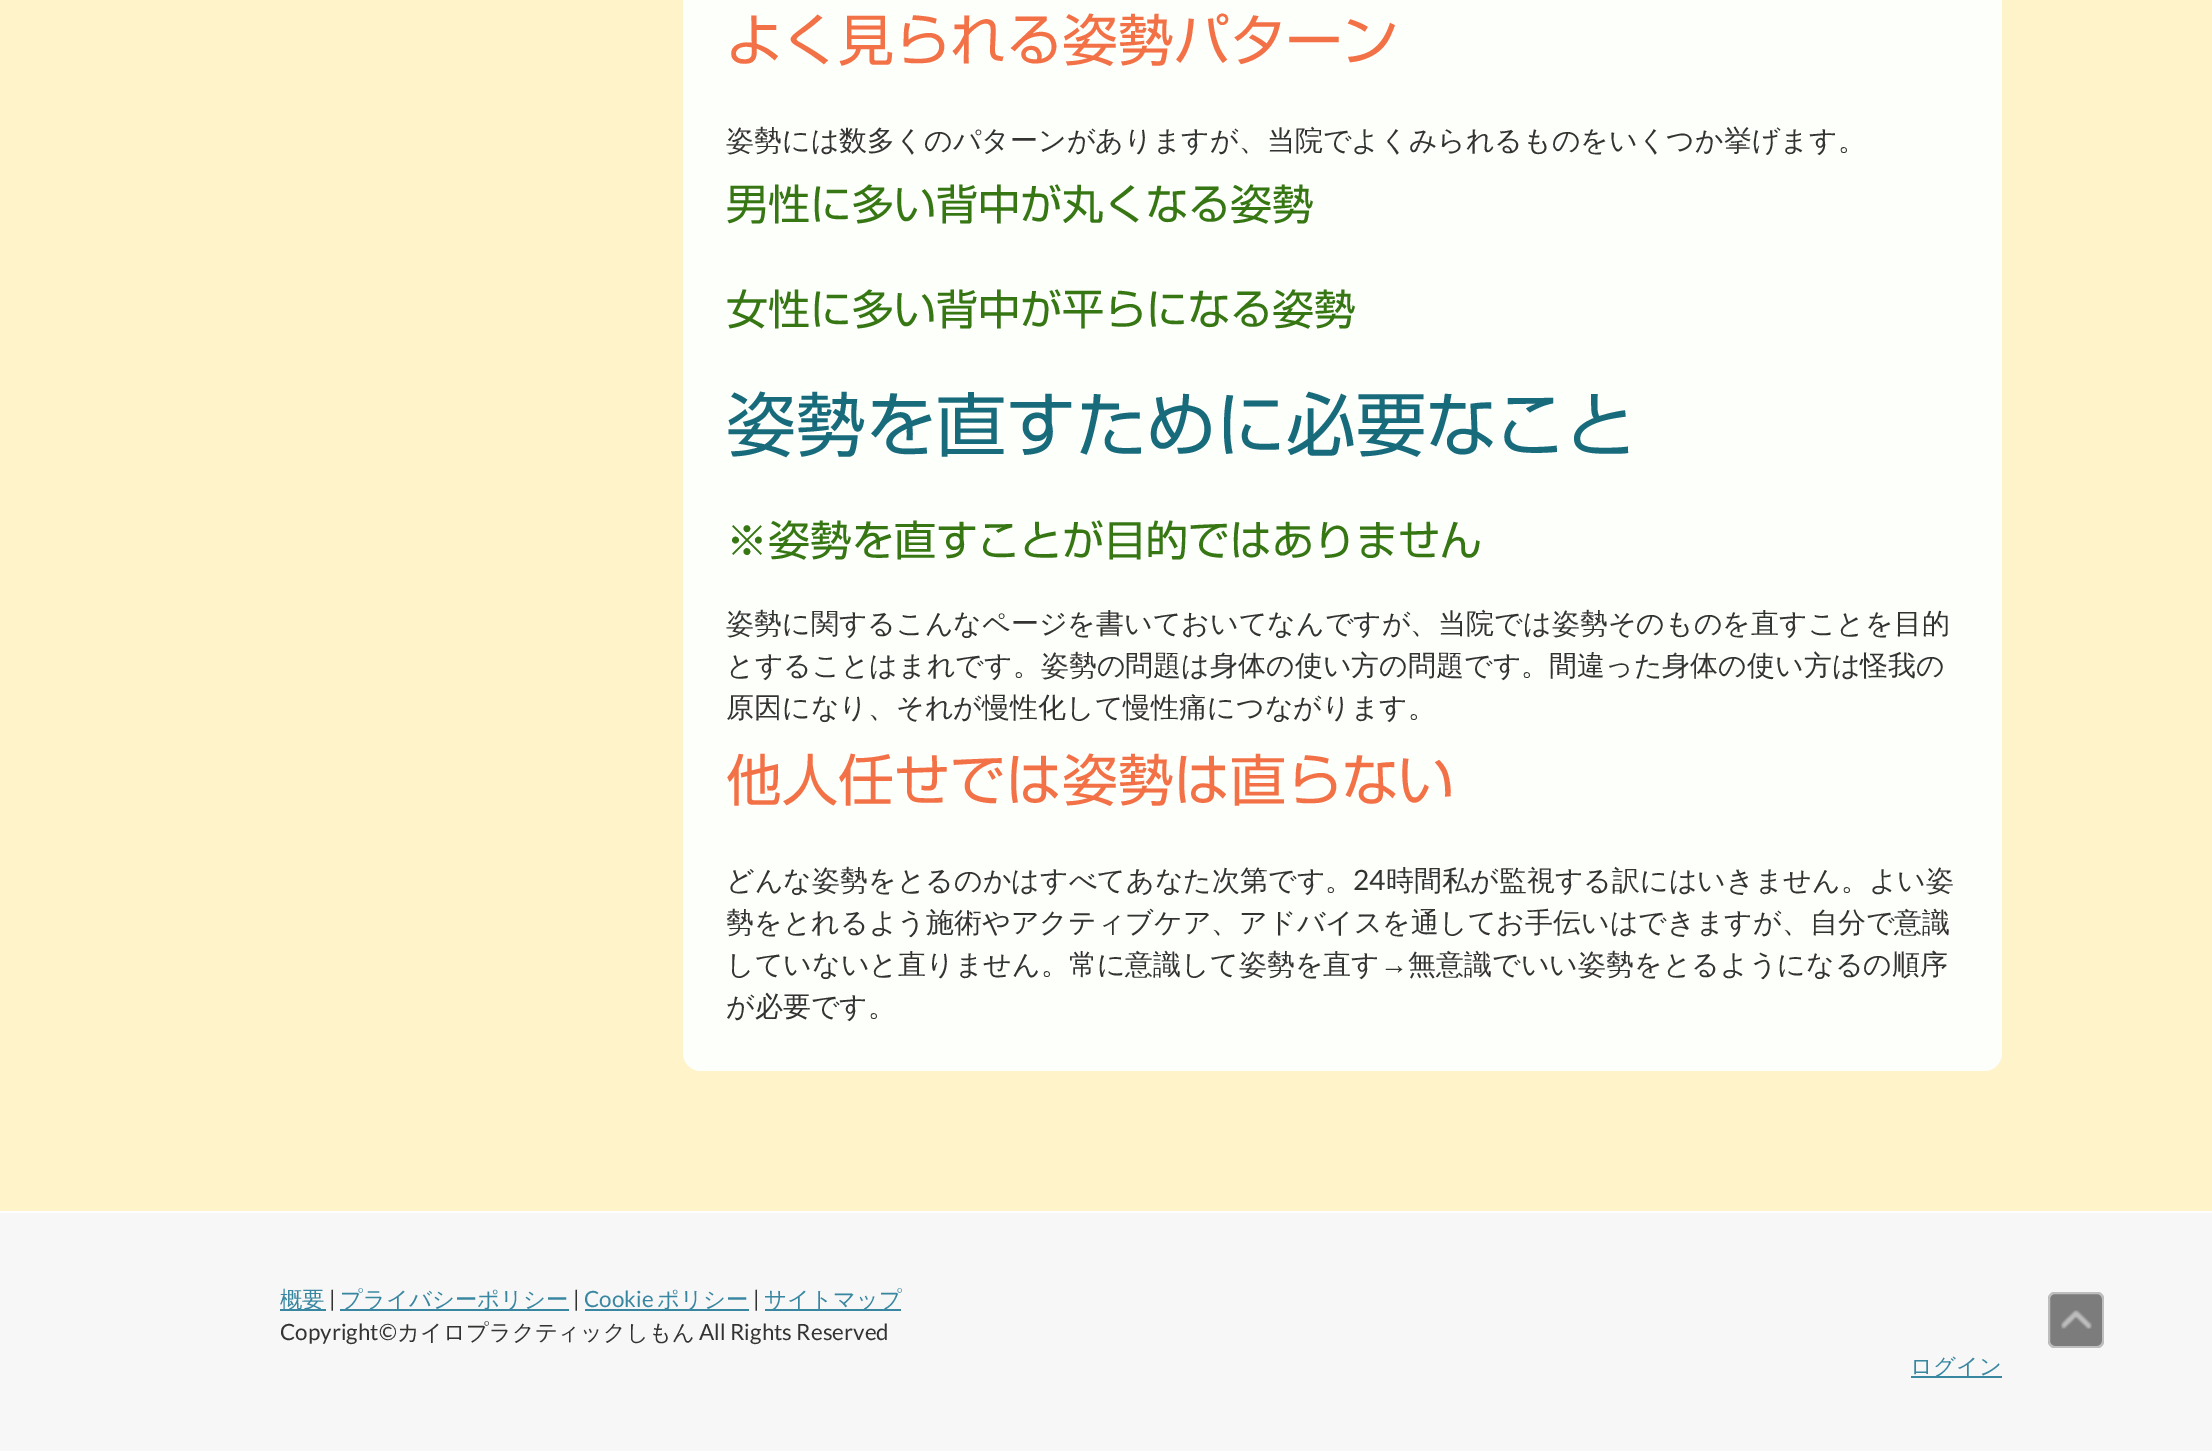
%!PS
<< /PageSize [2212 1451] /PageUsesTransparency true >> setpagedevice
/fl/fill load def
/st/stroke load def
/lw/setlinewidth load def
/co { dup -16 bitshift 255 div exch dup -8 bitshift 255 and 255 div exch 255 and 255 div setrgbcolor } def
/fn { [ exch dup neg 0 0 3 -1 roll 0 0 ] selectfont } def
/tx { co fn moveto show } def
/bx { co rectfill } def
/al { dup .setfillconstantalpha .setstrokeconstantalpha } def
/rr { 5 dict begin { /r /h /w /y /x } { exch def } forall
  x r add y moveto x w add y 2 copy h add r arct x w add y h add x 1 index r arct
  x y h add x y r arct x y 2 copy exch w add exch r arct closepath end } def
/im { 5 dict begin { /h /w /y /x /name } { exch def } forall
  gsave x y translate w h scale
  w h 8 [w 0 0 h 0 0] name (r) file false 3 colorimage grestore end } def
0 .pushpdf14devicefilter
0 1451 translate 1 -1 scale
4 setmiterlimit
0 0 2212 1451 16#FFFFFF bx
0 0 2212 1211 16#FFF3CA bx
16#FDFFFB co
683 -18 1319 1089 18 rr fl
0 1213 2212 238 16#F7F7F7 bx
280 1309 46 2 16#3986A0 bx
340 1309 229 2 16#3986A0 bx
585 1309 164 2 16#3986A0 bx
765 1309 136 2 16#3986A0 bx
1911 1376 91 2 16#3986A0 bx
16#7C7C7C co
2048 1292 56 56 7 rr fl
0.5 al
16#FFFFFF co
2 lw
2049 1293 54 54 6 rr st
1 al
(media/1.raw) 2061 1310 31 19 im
(よく見られる姿勢パターン) 726 61 /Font-Regular 56 16#F37146 tx
(姿勢には数多くのパターンがありますが、当院でよくみられるものをいくつか挙げます。) 726 150 /WenQuanYiZenHei-Medium 28 16#333332 tx
(男性に多い背中が丸くなる姿勢) 726 220 /Font-Regular 42 16#367714 tx
(女性に多い背中が平らになる姿勢) 726 325 /Font-Regular 42 16#367714 tx
(姿勢を直すために必要なこと) 726 451 /Font-Regular 70 16#186B7B tx
(※姿勢を直すことが目的ではありません) 726 556 /Font-Regular 42 16#367714 tx
(姿勢に関するこんなページを書いておいてなんですが、当院では姿勢そのものを直すことを目的) 726 633 /WenQuanYiZenHei-Medium 28 16#333332 tx
(とすることはまれです。姿勢の問題は身体の使い方の問題です。間違った身体の使い方は怪我の) 726 675 /WenQuanYiZenHei-Medium 28 16#333332 tx
(原因になり、それが慢性化して慢性痛につながります。) 726 717 /WenQuanYiZenHei-Medium 28 16#333332 tx
(他人任せでは姿勢は直らない) 726 801 /Font-Regular 56 16#F37146 tx
(どんな姿勢をとるのかはすべてあなた次第です。) 726 890 /WenQuanYiZenHei-Medium 28 16#333332 tx
(24) 1353 890 /Lato-Regular 28 16#333332 tx
(時間私が監視する訳にはいきません。よい姿) 1386 890 /WenQuanYiZenHei-Medium 28 16#333332 tx
(勢をとれるよう施術やアクティブケア、アドバイスを通してお手伝いはできますが、自分で意識) 726 932 /WenQuanYiZenHei-Medium 28 16#333332 tx
(していないと直りません。常に意識して姿勢を直す) 726 974 /WenQuanYiZenHei-Medium 28 16#333332 tx
(→) 1380 974 /LiberationSans-Regular 28 16#333332 tx
(無意識でいい姿勢をとるようになるの順序) 1408 974 /WenQuanYiZenHei-Medium 28 16#333332 tx
(が必要です。) 726 1016 /WenQuanYiZenHei-Medium 28 16#333332 tx
(概要) 280 1307 /WenQuanYiZenHei-Medium 22.4 16#3986A0 tx
(|) 329 1307 /Lato-Regular 22.4 16#333332 tx
(プライバシーポリシー) 340 1307 /WenQuanYiZenHei-Medium 22.4 16#3986A0 tx
(|) 573 1307 /Lato-Regular 22.4 16#333332 tx
(Cookie) 584 1307 /Lato-Regular 22.4 16#3986A0 tx
(ポリシー) 657 1307 /WenQuanYiZenHei-Medium 22.4 16#3986A0 tx
(|) 753 1307 /Lato-Regular 22.4 16#333332 tx
(サイトマップ) 764 1307 /WenQuanYiZenHei-Medium 22.4 16#3986A0 tx
(Copyright©) 280 1340 /Lato-Regular 22.4 16#333332 tx
(カイロプラクティックしもん) 397 1340 /WenQuanYiZenHei-Medium 22.4 16#333332 tx
(All Rights Reserved) 699 1340 /Lato-Regular 22.4 16#333332 tx
(ログイン) 1910 1374 /WenQuanYiZenHei-Medium 22.4 16#3986A0 tx
.poppdf14devicefilter showpage
